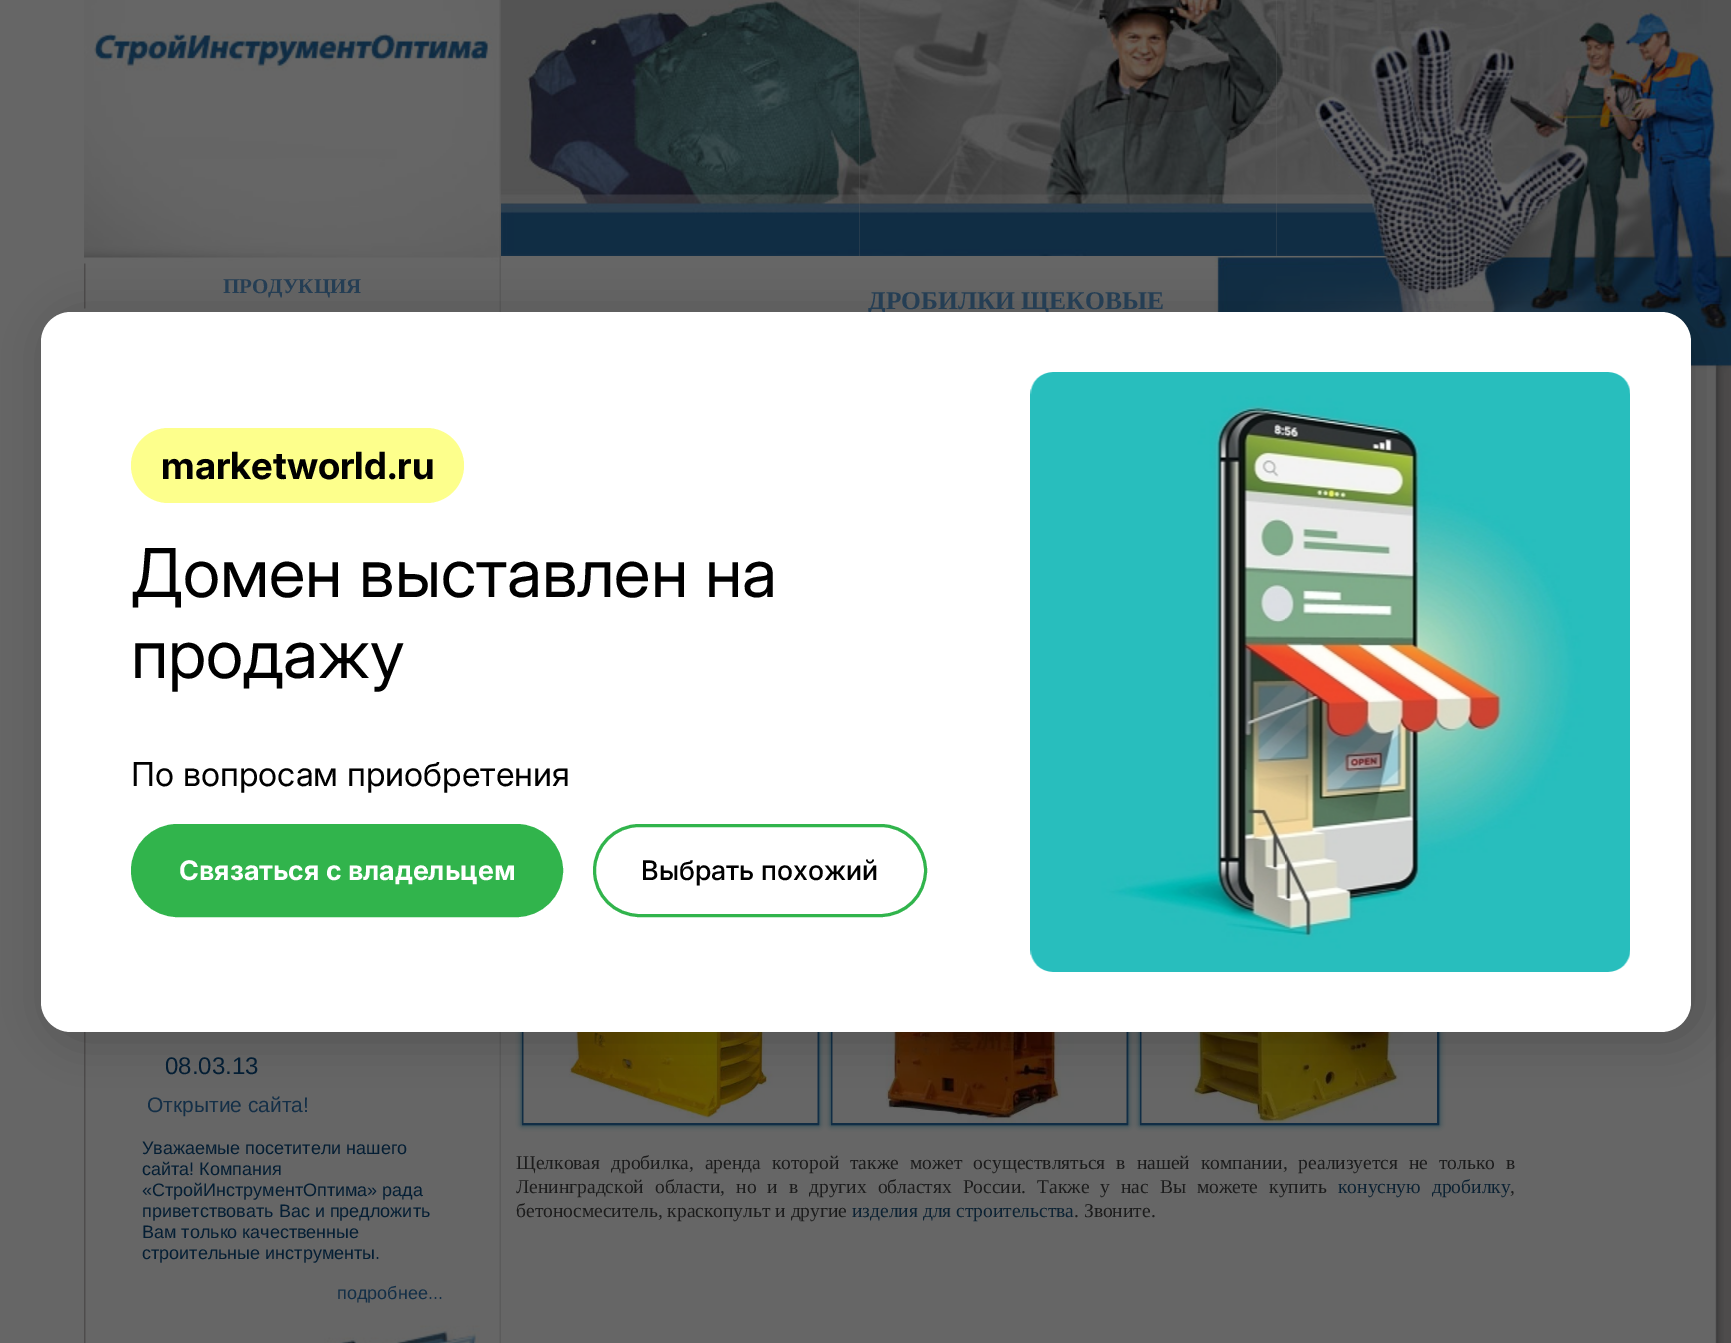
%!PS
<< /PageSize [1731 1343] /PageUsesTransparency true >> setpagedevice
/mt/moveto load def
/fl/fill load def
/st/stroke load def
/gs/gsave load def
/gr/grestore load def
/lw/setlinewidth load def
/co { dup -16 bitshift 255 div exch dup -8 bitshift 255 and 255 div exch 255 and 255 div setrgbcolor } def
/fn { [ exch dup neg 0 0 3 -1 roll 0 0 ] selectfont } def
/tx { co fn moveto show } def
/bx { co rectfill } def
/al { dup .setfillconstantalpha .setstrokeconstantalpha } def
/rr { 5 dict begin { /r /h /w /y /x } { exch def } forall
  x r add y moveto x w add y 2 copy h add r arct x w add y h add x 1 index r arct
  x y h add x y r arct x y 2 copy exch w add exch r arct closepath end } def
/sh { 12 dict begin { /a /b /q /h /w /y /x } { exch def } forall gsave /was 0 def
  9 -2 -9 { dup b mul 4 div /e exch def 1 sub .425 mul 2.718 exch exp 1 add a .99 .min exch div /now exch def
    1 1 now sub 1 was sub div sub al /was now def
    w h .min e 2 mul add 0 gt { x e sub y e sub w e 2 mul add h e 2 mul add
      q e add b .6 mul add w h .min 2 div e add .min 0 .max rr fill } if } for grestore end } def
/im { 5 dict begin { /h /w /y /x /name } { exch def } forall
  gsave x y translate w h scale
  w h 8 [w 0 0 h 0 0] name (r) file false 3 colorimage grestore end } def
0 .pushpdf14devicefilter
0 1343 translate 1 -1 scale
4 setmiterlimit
0 0 1731 1343 16#666666 bx
(media/1.raw) 84 263 417 1080 im
(media/2.raw) 84 0 417 264 im
(media/3.raw) 84 308 45 4 im
(media/4.raw) 324 1325 156 18 im
(media/5.raw) 501 0 359 256 im
(media/6.raw) 859 0 418 256 im
(media/7.raw) 1276 0 254 256 im
(media/8.raw) 1213 256 317 56 im
16#0E3E50 co
522 897 297 228 0 3 1 sh
16#112D45 co
2 lw
523 898 295 226 rectstroke
(media/9.raw) 523 1032 295 91 im
16#0E3E50 co
831 897 297 228 0 3 1 sh
16#112D45 co
832 898 295 226 rectstroke
(media/10.raw) 832 1032 295 91 im
16#0E3E50 co
1140 897 299 228 0 3 1 sh
16#112D45 co
1141 898 297 226 rectstroke
(media/11.raw) 1141 1032 296 91 im
1724 373 7 970 16#4E4C4C bx
(media/12.raw) 1530 373 194 970 im
(media/13.raw) 1530 0 201 373 im
16#000000 co
51 318 1650 720 30 22.5 .2 sh
(ПРОДУКЦИЯ) 223 293 /LiberationSerif-Bold 21 16#253E54 tx
(08.03.13) 165 1074 /LiberationSans-Regular 24 16#041E34 tx
(Открытие сайта!) 147 1112 /LiberationSans-Regular 21 16#142F47 tx
(Уважаемые посетители нашего) 142 1154 /LiberationSans-Regular 18 16#041E34 tx
(сайта! Компания) 142 1175 /LiberationSans-Regular 18 16#041E34 tx
(«СтройИнструментОптима» рада) 142 1196 /LiberationSans-Regular 18 16#041E34 tx
(приветствовать Вас и предложить) 142 1217 /LiberationSans-Regular 18 16#041E34 tx
(Вам только качественные) 142 1238 /LiberationSans-Regular 18 16#041E34 tx
(строительные инструменты.) 142 1259 /LiberationSans-Regular 18 16#041E34 tx
(подробнее...) 337 1299 /LiberationSans-Regular 18 16#142F47 tx
(ДРОБИЛКИ ЩЕКОВЫЕ) 868 309 /LiberationSerif-Bold 25.5 16#253E54 tx
/LiberationSerif-Regular 19.5 fn
16#1C1C1C co
516 1169 mt 6.1 0 32 (Щелковая дробилка, аренда которой также может осуществляться в нашей компании, реализуется не только в) widthshow
516 1193 mt 6.1 0 32 (Ленинградской области, но и в других областях России. Также у нас Вы можете купить) widthshow
16#0C2233 co
1338 1193 mt 6.1 0 32 (конусную дробилку) widthshow
(,) 1510 1193 /LiberationSerif-Regular 19.5 16#1C1C1C tx
(бетоносмеситель, краскопульт и другие) 516 1217 /LiberationSerif-Regular 19.5 16#1C1C1C tx
(изделия для строительства) 852 1217 /LiberationSerif-Regular 19.5 16#0C2233 tx
(. Звоните.) 1074 1217 /LiberationSerif-Regular 19.5 16#1C1C1C tx
16#FFFFFF co
41 312 1650 720 30 rr fl
16#FDFF8C co
131 428 333 75 37.5 rr fl
(marketworld.ru) 161 479 /Inter-Bold 37.5 16#000000 tx
(Домен выставлен на) 131 597 /Inter-Regular 67.5 16#000000 tx
(продажу) 131 678 /Inter-Regular 67.5 16#000000 tx
(По вопросам приобретения) 131 786 /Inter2-Regular 33 16#000000 tx
16#31B44C co
132.5 825.5 429 90 45 rr gs fl gr
3 lw
st
(Связаться с владельцем) 179 880 /Inter2-Bold 27 16#FFFFFF tx
16#31B44C co
594.5 825.5 331 90 45 rr st
(Выбрать похожий) 641 880 /Inter-Medium 27 16#000000 tx
(media/14.raw) 1030 372 600 600 im
.poppdf14devicefilter showpage
